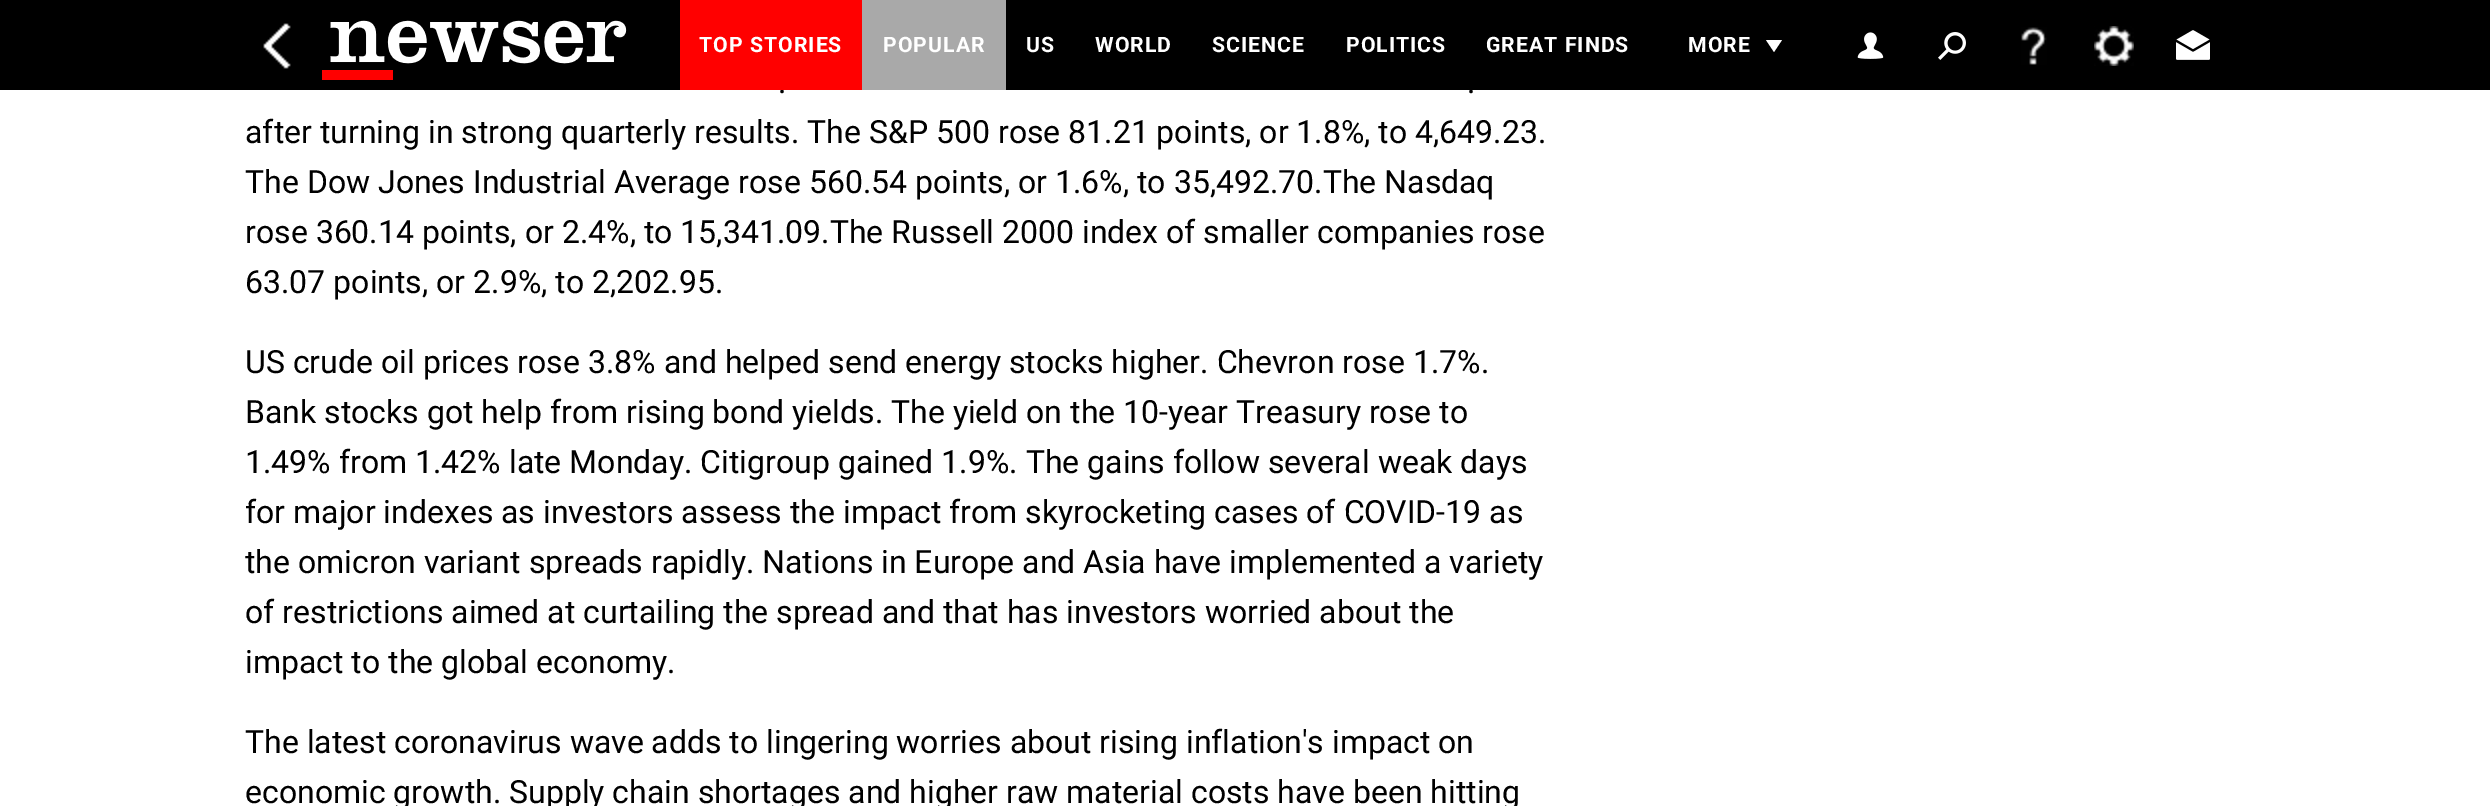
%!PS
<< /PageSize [2490 806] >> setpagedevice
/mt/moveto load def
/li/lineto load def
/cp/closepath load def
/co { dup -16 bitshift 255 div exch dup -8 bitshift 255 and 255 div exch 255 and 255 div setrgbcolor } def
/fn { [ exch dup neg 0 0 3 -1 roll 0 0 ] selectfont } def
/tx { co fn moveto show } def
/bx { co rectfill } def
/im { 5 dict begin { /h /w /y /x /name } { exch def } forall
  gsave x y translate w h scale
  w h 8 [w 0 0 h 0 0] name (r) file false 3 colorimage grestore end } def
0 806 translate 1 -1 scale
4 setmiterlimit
0 0 2490 806 16#FFFFFF bx
0 0 2490 90 16#000000 bx
(media/1.raw) 263 23 28 46 im
(media/2.raw) 322 20 305 60 im
862 0 144 90 16#A9A9A9 bx
16#FFFFFF co
1766 40 mt 1774 52 li 1782 40 li cp eofill
(media/3.raw) 1857 32 27 27 im
(media/4.raw) 1938 32 28 28 im
(media/5.raw) 2021 27 26 38 im
(media/6.raw) 2094 26 40 40 im
(media/7.raw) 2176 30 34 30 im
/Roboto-Bold 21.25 fn
883 52 mt 1 0 (POPULAR) ashow
1026 52 mt 1 0 (US) ashow
1095 52 mt 1 0 (WORLD) ashow
1212 52 mt 1 0 (SCIENCE) ashow
1346 52 mt 1 0 (POLITICS) ashow
1486 52 mt 1 0 (GREAT FINDS) ashow
1688 52 mt 1 0 (MORE) ashow
(.) 778 93 /Roboto-Regular 32 16#000000 tx
680 0 182 90 16#FF0000 bx
/Roboto-Bold 21.25 fn
16#FFFFFF co
699 52 mt 1 0 (TOP STORIES) ashow
(.) 1467 93 /Roboto-Regular 32 16#000000 tx
(after turning in strong quarterly results. The S&P 500 rose 81.21 points, or 1.8%, to 4,649.23.) 245 143 /Roboto-Regular 32 16#000000 tx
(The Dow Jones Industrial Average rose 560.54 points, or 1.6%, to 35,492.70.The Nasdaq) 245 193 /Roboto-Regular 32 16#000000 tx
(rose 360.14 points, or 2.4%, to 15,341.09.The Russell 2000 index of smaller companies rose) 245 243 /Roboto-Regular 32 16#000000 tx
(63.07 points, or 2.9%, to 2,202.95.) 245 293 /Roboto-Regular 32 16#000000 tx
(US crude oil prices rose 3.8% and helped send energy stocks higher. Chevron rose 1.7%.) 245 373 /Roboto-Regular 32 16#000000 tx
(Bank stocks got help from rising bond yields. The yield on the 10-year Treasury rose to) 245 423 /Roboto-Regular 32 16#000000 tx
(1.49% from 1.42% late Monday. Citigroup gained 1.9%. The gains follow several weak days) 245 473 /Roboto-Regular 32 16#000000 tx
(for major indexes as investors assess the impact from skyrocketing cases of COVID-19 as) 245 523 /Roboto-Regular 32 16#000000 tx
(the omicron variant spreads rapidly. Nations in Europe and Asia have implemented a variety) 245 573 /Roboto-Regular 32 16#000000 tx
(of restrictions aimed at curtailing the spread and that has investors worried about the) 245 623 /Roboto-Regular 32 16#000000 tx
(impact to the global economy.) 245 673 /Roboto-Regular 32 16#000000 tx
(The latest coronavirus wave adds to lingering worries about rising inflation's impact on) 245 753 /Roboto-Regular 32 16#000000 tx
(economic growth. Supply chain shortages and higher raw material costs have been hitting) 245 803 /Roboto-Regular 32 16#000000 tx
showpage
